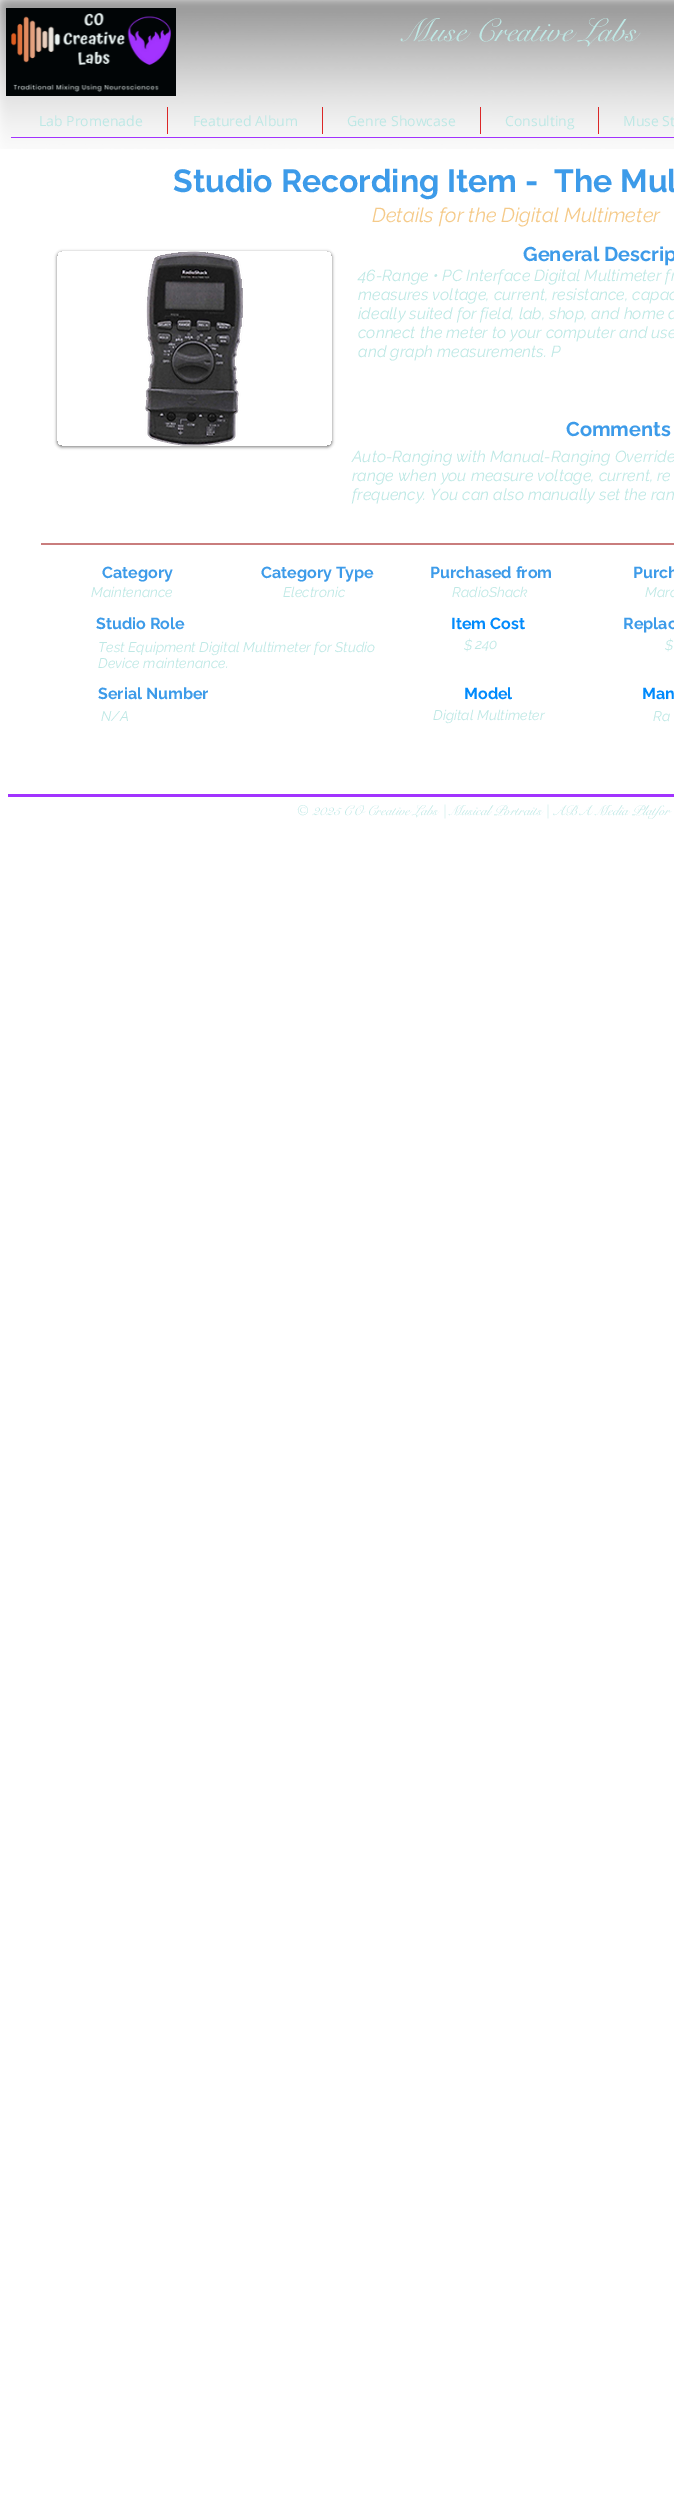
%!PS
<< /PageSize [674 2516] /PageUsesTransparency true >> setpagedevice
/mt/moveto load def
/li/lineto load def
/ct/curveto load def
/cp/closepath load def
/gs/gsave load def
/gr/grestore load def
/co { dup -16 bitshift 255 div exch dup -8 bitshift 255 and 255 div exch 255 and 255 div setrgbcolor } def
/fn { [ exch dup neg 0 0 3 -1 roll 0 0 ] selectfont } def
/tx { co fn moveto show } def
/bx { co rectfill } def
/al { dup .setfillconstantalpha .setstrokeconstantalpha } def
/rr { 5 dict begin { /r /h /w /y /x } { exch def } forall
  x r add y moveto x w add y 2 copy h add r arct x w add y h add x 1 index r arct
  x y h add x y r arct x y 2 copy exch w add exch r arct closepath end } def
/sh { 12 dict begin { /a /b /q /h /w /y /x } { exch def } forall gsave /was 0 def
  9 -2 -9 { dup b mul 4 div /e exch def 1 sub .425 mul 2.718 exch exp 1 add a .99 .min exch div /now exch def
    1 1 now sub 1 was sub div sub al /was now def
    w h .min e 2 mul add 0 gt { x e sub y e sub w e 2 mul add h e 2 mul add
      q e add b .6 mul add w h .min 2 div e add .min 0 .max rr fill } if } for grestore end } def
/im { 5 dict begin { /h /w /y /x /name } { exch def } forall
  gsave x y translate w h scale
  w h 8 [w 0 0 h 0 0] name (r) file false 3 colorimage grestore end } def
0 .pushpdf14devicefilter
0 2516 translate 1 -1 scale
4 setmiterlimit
0 0 674 2516 16#FFFFFF bx
(media/1.raw) 0 0 35 149 im
(media/2.raw) 35 0 639 149 im
6 8 170 88 16#010506 bx
(media/3.raw) 11 13 160 79 im
167 107 1 27 16#DB2727 bx
322 107 1 27 16#DB2727 bx
480 107 1 27 16#DB2727 bx
598 107 1 27 16#DB2727 bx
11 137 663 1 16#A233FF bx
gs
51 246 mt 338 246 li 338 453 li 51 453 li cp 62 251 mt 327 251 li 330 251 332 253 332 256 ct 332 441 li 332 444 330 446 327 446 ct 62 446 li 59 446 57 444 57 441 ct 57 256 li 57 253 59 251 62 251 ct cp eoclip newpath
16#000000 co
57 252 275 195 5 1.5 .5 sh
gr
(media/4.raw) 145 251 99 195 im
41 543 633 2 16#C97D7D bx
8 794 666 3 16#A233FF bx
(Muse Creative Labs) 399 41 /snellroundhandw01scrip-Regular 32 16#BEE8E5 tx
(Lab Promenade) 39 126 /OpenSans-Regular 14 16#BEE8E5 tx
(Featured Album) 193 126 /OpenSans-Regular 14 16#BEE8E5 tx
(Genre Showcase) 347 126 /OpenSans-Regular 14 16#BEE8E5 tx
(Consulting) 505 126 /OpenSans-Regular 14 16#BEE8E5 tx
(Muse St) 623 126 /OpenSans-Regular 14 16#BEE8E5 tx
(Studio Recording Item -) 173 192 /Raleway-Bold 32 16#3D9BE9 tx
(The Mul) 554 192 /Raleway-Bold 32 16#3D9BE9 tx
(Details for the) 372 222 /Raleway-Italic 20 16#F5CA89 tx
(Digital Multimeter) 501 222 /Raleway-Italic 20 16#F5CA89 tx
(General Descrip) 523 261 /Raleway-Bold 20 16#3D9BE9 tx
(46-Range • PC Interface Digital Multimeter fr) 358 281 /Raleway-Italic 16 16#BEE8E5 tx
(measures voltage, current, resistance, capac) 358 300 /Raleway-Italic 16 16#BEE8E5 tx
(ideally suited for field, lab, shop, and home a) 358 319 /Raleway-Italic 16 16#BEE8E5 tx
(connect the meter to your computer and use) 358 338 /Raleway-Italic 16 16#BEE8E5 tx
(and graph measurements. P) 358 357 /Raleway-Italic 16 16#BEE8E5 tx
(Comments) 566 436 /Raleway-Bold 20 16#3D9BE9 tx
(Auto-Ranging with Manual-Ranging Override) 352 462 /Raleway-Italic 16 16#BEE8E5 tx
(range when you measure voltage, current, re) 352 481 /Raleway-Italic 16 16#BEE8E5 tx
(frequency. You can also manually set the ran) 352 500 /Raleway-Italic 16 16#BEE8E5 tx
(Category) 102 578 /Raleway-Bold 16 16#3D9BE9 tx
(Category Type) 261 578 /Raleway-Bold 16 16#3D9BE9 tx
(Purchased from) 430 578 /Raleway-Bold 16 16#3D9BE9 tx
(RadioShack) 452 597 /Raleway-Italic 14 16#BEE8E5 tx
(Purch) 633 578 /Raleway-Bold 16 16#3D9BE9 tx
(Maintenance) 91 597 /Raleway-Italic 14 16#BEE8E5 tx
(Electronic) 283 597 /Raleway-Italic 14 16#BEE8E5 tx
(Marc) 645 597 /Raleway-Italic 14 16#BEE8E5 tx
(Studio Role) 96 629 /Raleway-Bold 16 16#3D9BE9 tx
(Item Cost) 451 629 /Raleway-Bold 16 16#008AFC tx
(Replac) 623 629 /Raleway-Bold 16 16#3D9BE9 tx
(Test Equipment Digital Multimeter for Studio) 98 652 /Raleway-Italic 14 16#BEE8E5 tx
(Device maintenance.) 98 668 /Raleway-Italic 14 16#BEE8E5 tx
($) 464 650 /Raleway-Italic 14 16#BEE8E5 tx
(240) 475 649 /Raleway-Italic 14 16#BEE8E5 tx
($) 665 650 /Raleway-Italic 14 16#BEE8E5 tx
(Serial Number) 98 699 /Raleway-Bold 16 16#3D9BE9 tx
(Model) 464 699 /Raleway-Bold 16 16#008AFC tx
(Man) 642 699 /Raleway-Bold 16 16#008AFC tx
(N/A) 101 721 /Raleway-Italic 14 16#BEE8E5 tx
(Digital Multimeter) 433 720 /Raleway-Italic 14 16#BEE8E5 tx
(Ra) 653 721 /Raleway-Italic 14 16#BEE8E5 tx
(© 2025 CO Creative Labs | Musical Portraits | ABA Media Platfor) 297 815 /snellroundhandw01scrip-Regular 14 16#BEE8E5 tx
.poppdf14devicefilter showpage
